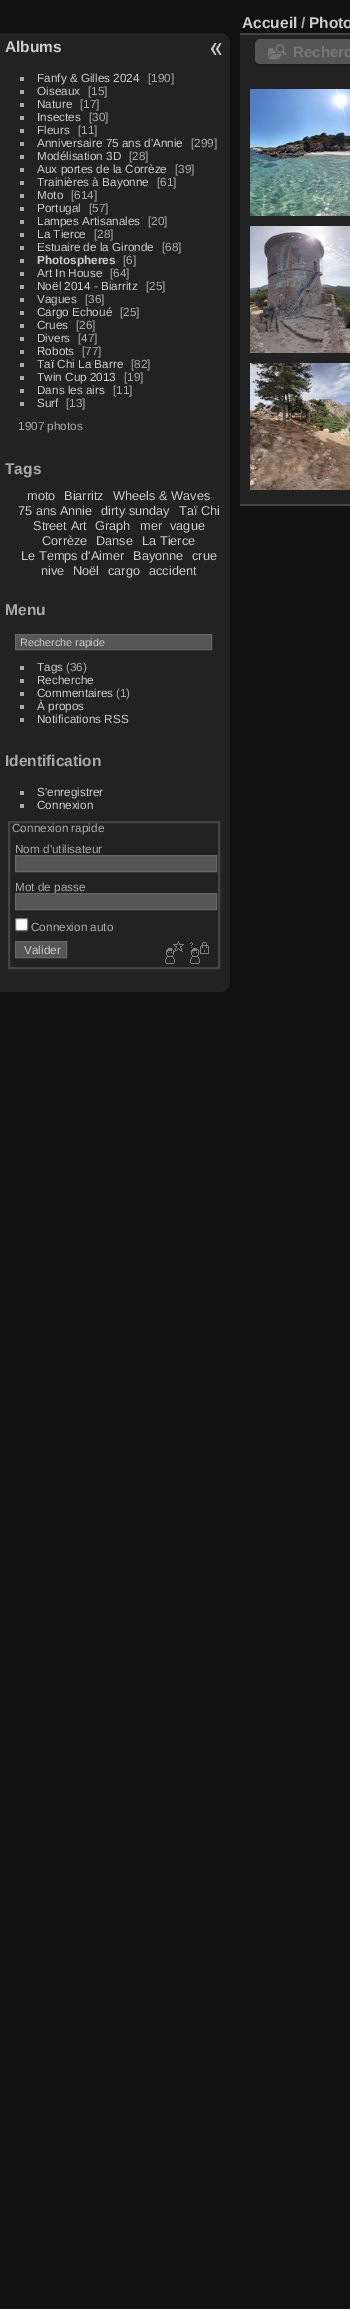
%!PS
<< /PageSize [350 2309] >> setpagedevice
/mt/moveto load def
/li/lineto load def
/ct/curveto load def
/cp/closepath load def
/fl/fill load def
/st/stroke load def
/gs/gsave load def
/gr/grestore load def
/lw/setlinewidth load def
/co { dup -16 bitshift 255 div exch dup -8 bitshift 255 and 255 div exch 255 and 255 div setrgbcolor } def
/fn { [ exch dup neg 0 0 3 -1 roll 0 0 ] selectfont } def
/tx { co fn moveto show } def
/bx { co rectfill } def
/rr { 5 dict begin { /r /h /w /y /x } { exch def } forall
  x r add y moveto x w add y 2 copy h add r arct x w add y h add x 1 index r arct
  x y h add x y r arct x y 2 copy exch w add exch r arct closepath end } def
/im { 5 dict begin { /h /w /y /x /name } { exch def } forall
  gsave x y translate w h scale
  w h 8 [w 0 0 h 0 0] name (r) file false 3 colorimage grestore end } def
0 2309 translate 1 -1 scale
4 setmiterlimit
0 0 350 2309 16#111111 bx
16#222222 co
0 33 mt 220 33 li 225.5 33 230 37.5 230 43 ct 230 982 li 230 987.5 225.5 992 220 992 ct 0 992 li cp fl
20 77 4 4 16#AAAAAA bx
20 90 4 4 16#AAAAAA bx
20 103 4 4 16#AAAAAA bx
20 116 4 4 16#AAAAAA bx
20 129 4 4 16#AAAAAA bx
20 142 4 4 16#AAAAAA bx
20 155 4 4 16#AAAAAA bx
20 168 4 4 16#AAAAAA bx
20 181 4 4 16#AAAAAA bx
20 194 4 4 16#AAAAAA bx
20 207 4 4 16#AAAAAA bx
20 220 4 4 16#AAAAAA bx
20 233 4 4 16#AAAAAA bx
20 246 4 4 16#AAAAAA bx
20 259 4 4 16#AAAAAA bx
20 272 4 4 16#AAAAAA bx
20 285 4 4 16#AAAAAA bx
20 298 4 4 16#AAAAAA bx
20 311 4 4 16#AAAAAA bx
20 324 4 4 16#AAAAAA bx
20 337 4 4 16#AAAAAA bx
20 350 4 4 16#AAAAAA bx
20 363 4 4 16#AAAAAA bx
20 376 4 4 16#AAAAAA bx
20 389 4 4 16#AAAAAA bx
20 402 4 4 16#AAAAAA bx
16#555555 co
15.5 634.5 mt 211.5 634.5 li 211.5 649.5 li 15.5 649.5 li cp gs fl gr
16#666666 co
st
20 666 4 4 16#AAAAAA bx
20 679 4 4 16#AAAAAA bx
20 692 4 4 16#AAAAAA bx
20 705 4 4 16#AAAAAA bx
20 718 4 4 16#AAAAAA bx
20 791 4 4 16#AAAAAA bx
20 804 4 4 16#AAAAAA bx
16#444444 co
2 lw
9 822 210 146 rectstroke
16#555555 co
15.5 855.5 mt 216.5 855.5 li 216.5 871.5 li 15.5 871.5 li cp gs fl gr
16#666666 co
1 lw
st
16#FFFFFF co
15.5 918.5 12 12 1.5 rr gs fl gr
16#767676 co
st
16#555555 co
15.5 941.5 mt 66.5 941.5 li 66.5 957.5 li 15.5 957.5 li cp gs fl gr
16#666666 co
st
(media/1.raw) 165 941 19 23 im
(media/2.raw) 190 942 19 22 im
240 35 110 469 16#222222 bx
240 504 110 2 16#444444 bx
240 33 110 2 16#444444 bx
16#1D1D1D co
255 59 mt 255 61 li 255 64 257 66 260 66 ct 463 66 li 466 66 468 64 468 61 ct 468 59 li 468 62 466 64 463 64 ct 260 64 li 257 64 255 62 255 59 ct cp fl
16#555555 co
255 39 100 25 5 rr fl
(media/3.raw) 268 44 19 16 im
(media/4.raw) 250 89 100 127 im
(media/5.raw) 250 226 100 127 im
(media/6.raw) 250 363 100 127 im
(media/7.raw) 210 43 12 12 im
(Albums) 5 52 /LiberationSans-Bold 15.5 16#CCCCCC tx
(Fanfy & Gilles 2024) 37 82 /LiberationSans-Regular 11.75 16#CCCCCC tx
([190]) 148 82 /LiberationSans-Regular 11.75 16#AAAAAA tx
(Oiseaux) 37 95 /LiberationSans-Regular 11.75 16#CCCCCC tx
([15]) 88 95 /LiberationSans-Regular 11.75 16#AAAAAA tx
(Nature) 37 108 /LiberationSans-Regular 11.75 16#CCCCCC tx
([17]) 80 108 /LiberationSans-Regular 11.75 16#AAAAAA tx
(Insectes) 37 121 /LiberationSans-Regular 11.75 16#CCCCCC tx
([30]) 89 121 /LiberationSans-Regular 11.75 16#AAAAAA tx
(Fleurs) 37 134 /LiberationSans-Regular 11.75 16#CCCCCC tx
([11]) 78 134 /LiberationSans-Regular 11.75 16#AAAAAA tx
(Anniversaire 75 ans d'Annie) 37 147 /LiberationSans-Regular 11.75 16#CCCCCC tx
([299]) 191 147 /LiberationSans-Regular 11.75 16#AAAAAA tx
(Modélisation 3D) 37 160 /LiberationSans-Regular 11.75 16#CCCCCC tx
([28]) 129 160 /LiberationSans-Regular 11.75 16#AAAAAA tx
(Aux portes de la Corrèze) 37 173 /LiberationSans-Regular 11.75 16#CCCCCC tx
([39]) 175 173 /LiberationSans-Regular 11.75 16#AAAAAA tx
(Trainières à Bayonne) 37 186 /LiberationSans-Regular 11.75 16#CCCCCC tx
([61]) 157 186 /LiberationSans-Regular 11.75 16#AAAAAA tx
(Moto) 37 199 /LiberationSans-Regular 11.75 16#CCCCCC tx
([614]) 71 199 /LiberationSans-Regular 11.75 16#AAAAAA tx
(Portugal) 37 212 /LiberationSans-Regular 11.75 16#CCCCCC tx
([57]) 89 212 /LiberationSans-Regular 11.75 16#AAAAAA tx
(Lampes Artisanales) 37 225 /LiberationSans-Regular 11.75 16#CCCCCC tx
([20]) 148 225 /LiberationSans-Regular 11.75 16#AAAAAA tx
(La Tierce) 37 238 /LiberationSans-Regular 11.75 16#CCCCCC tx
([28]) 94 238 /LiberationSans-Regular 11.75 16#AAAAAA tx
(Estuaire de la Gironde) 37 251 /LiberationSans-Regular 11.75 16#CCCCCC tx
([68]) 162 251 /LiberationSans-Regular 11.75 16#AAAAAA tx
(Photospheres) 37 264 /LiberationSans-Bold 11.75 16#CCCCCC tx
([6]) 123 264 /LiberationSans-Regular 11.75 16#AAAAAA tx
(Art In House) 37 277 /LiberationSans-Regular 11.75 16#CCCCCC tx
([64]) 110 277 /LiberationSans-Regular 11.75 16#AAAAAA tx
(Noël 2014 - Biarritz) 37 290 /LiberationSans-Regular 11.75 16#CCCCCC tx
([25]) 146 290 /LiberationSans-Regular 11.75 16#AAAAAA tx
(Vagues) 37 303 /LiberationSans-Regular 11.75 16#CCCCCC tx
([36]) 85 303 /LiberationSans-Regular 11.75 16#AAAAAA tx
(Cargo Echoué) 37 316 /LiberationSans-Regular 11.75 16#CCCCCC tx
([25]) 120 316 /LiberationSans-Regular 11.75 16#AAAAAA tx
(Crues) 37 329 /LiberationSans-Regular 11.75 16#CCCCCC tx
([26]) 76 329 /LiberationSans-Regular 11.75 16#AAAAAA tx
(Divers) 37 342 /LiberationSans-Regular 11.75 16#CCCCCC tx
([47]) 78 342 /LiberationSans-Regular 11.75 16#AAAAAA tx
(Robots) 37 355 /LiberationSans-Regular 11.75 16#CCCCCC tx
([77]) 82 355 /LiberationSans-Regular 11.75 16#AAAAAA tx
(Taï Chi La Barre) 37 368 /LiberationSans-Regular 11.75 16#CCCCCC tx
([82]) 131 368 /LiberationSans-Regular 11.75 16#AAAAAA tx
(Twin Cup 2013) 37 381 /LiberationSans-Regular 11.75 16#CCCCCC tx
([19]) 124 381 /LiberationSans-Regular 11.75 16#AAAAAA tx
(Dans les airs) 37 394 /LiberationSans-Regular 11.75 16#CCCCCC tx
([11]) 113 394 /LiberationSans-Regular 11.75 16#AAAAAA tx
(Surf) 37 407 /LiberationSans-Regular 11.75 16#CCCCCC tx
([13]) 66 407 /LiberationSans-Regular 11.75 16#AAAAAA tx
(1907 photos) 18 430 /LiberationSans-Regular 11.75 16#AAAAAA tx
(Tags) 5 474 /LiberationSans-Bold 15.5 16#AAAAAA tx
(moto) 27 500 /LiberationSans-Regular 12.75 16#CCCCCC tx
(Biarritz) 64 500 /LiberationSans-Regular 12.75 16#CCCCCC tx
(Wheels & Waves) 113 500 /LiberationSans-Regular 12.75 16#CCCCCC tx
(75 ans Annie) 18 515 /LiberationSans-Regular 12.75 16#CCCCCC tx
(dirty sunday) 101 515 /LiberationSans-Regular 12.75 16#CCCCCC tx
(Taï Chi) 179 515 /LiberationSans-Regular 12.75 16#CCCCCC tx
(Street Art) 33 530 /LiberationSans-Regular 12.75 16#CCCCCC tx
(Graph) 95 530 /LiberationSans-Regular 12.75 16#CCCCCC tx
(mer) 140 530 /LiberationSans-Regular 12.75 16#CCCCCC tx
(vague) 170 530 /LiberationSans-Regular 12.75 16#CCCCCC tx
(Corrèze) 42 545 /LiberationSans-Regular 12.75 16#CCCCCC tx
(Danse) 96 545 /LiberationSans-Regular 12.75 16#CCCCCC tx
(La Tierce) 142 545 /LiberationSans-Regular 12.75 16#CCCCCC tx
(Le Temps d'Aimer) 21 560 /LiberationSans-Regular 12.75 16#CCCCCC tx
(Bayonne) 133 560 /LiberationSans-Regular 12.75 16#CCCCCC tx
(crue) 192 560 /LiberationSans-Regular 12.75 16#CCCCCC tx
(nive) 41 575 /LiberationSans-Regular 12.75 16#CCCCCC tx
(Noël) 73 575 /LiberationSans-Regular 12.75 16#CCCCCC tx
(cargo) 108 575 /LiberationSans-Regular 12.75 16#CCCCCC tx
(accident) 149 575 /LiberationSans-Regular 12.75 16#CCCCCC tx
(Menu) 5 615 /LiberationSans-Bold 15.5 16#AAAAAA tx
(Recherche rapide) 20 646 /LiberationSans-Regular 10.75 16#CCCCCC tx
(Tags) 37 671 /LiberationSans-Regular 11.75 16#CCCCCC tx
(\(36\)) 66 671 /LiberationSans-Regular 11.75 16#AAAAAA tx
(Recherche) 37 684 /LiberationSans-Regular 11.75 16#CCCCCC tx
(Commentaires) 37 697 /LiberationSans-Regular 11.75 16#CCCCCC tx
(\(1\)) 116 697 /LiberationSans-Regular 11.75 16#AAAAAA tx
(À propos) 37 710 /LiberationSans-Regular 11.75 16#CCCCCC tx
(Notifications RSS) 37 723 /LiberationSans-Regular 11.75 16#CCCCCC tx
(Identification) 5 766 /LiberationSans-Bold 15.5 16#AAAAAA tx
(S'enregistrer) 37 796 /LiberationSans-Regular 11.75 16#CCCCCC tx
(Connexion) 37 809 /LiberationSans-Regular 11.75 16#CCCCCC tx
(Connexion rapide) 12 832 /LiberationSans-Regular 11.75 16#AAAAAA tx
(Nom d'utilisateur) 15 853 /LiberationSans-Regular 11.75 16#AAAAAA tx
(Mot de passe) 15 891 /LiberationSans-Regular 11.75 16#AAAAAA tx
16#555555 co
15.5 893.5 mt 216.5 893.5 li 216.5 909.5 li 15.5 909.5 li cp gs fl gr
16#666666 co
st
(Connexion auto) 31 931 /LiberationSans-Regular 11.75 16#AAAAAA tx
(Valider) 24 954 /LiberationSans-Regular 11.75 16#CCCCCC tx
(Accueil) 242 28 /LiberationSans-Bold 15.5 16#CCCCCC tx
(/) 301 28 /LiberationSans-Bold 15.5 16#AAAAAA tx
(Photo) 309 28 /LiberationSans-Bold 15.5 16#CCCCCC tx
(Recherc) 293 57 /LiberationSans-Bold 15 16#777777 tx
showpage
